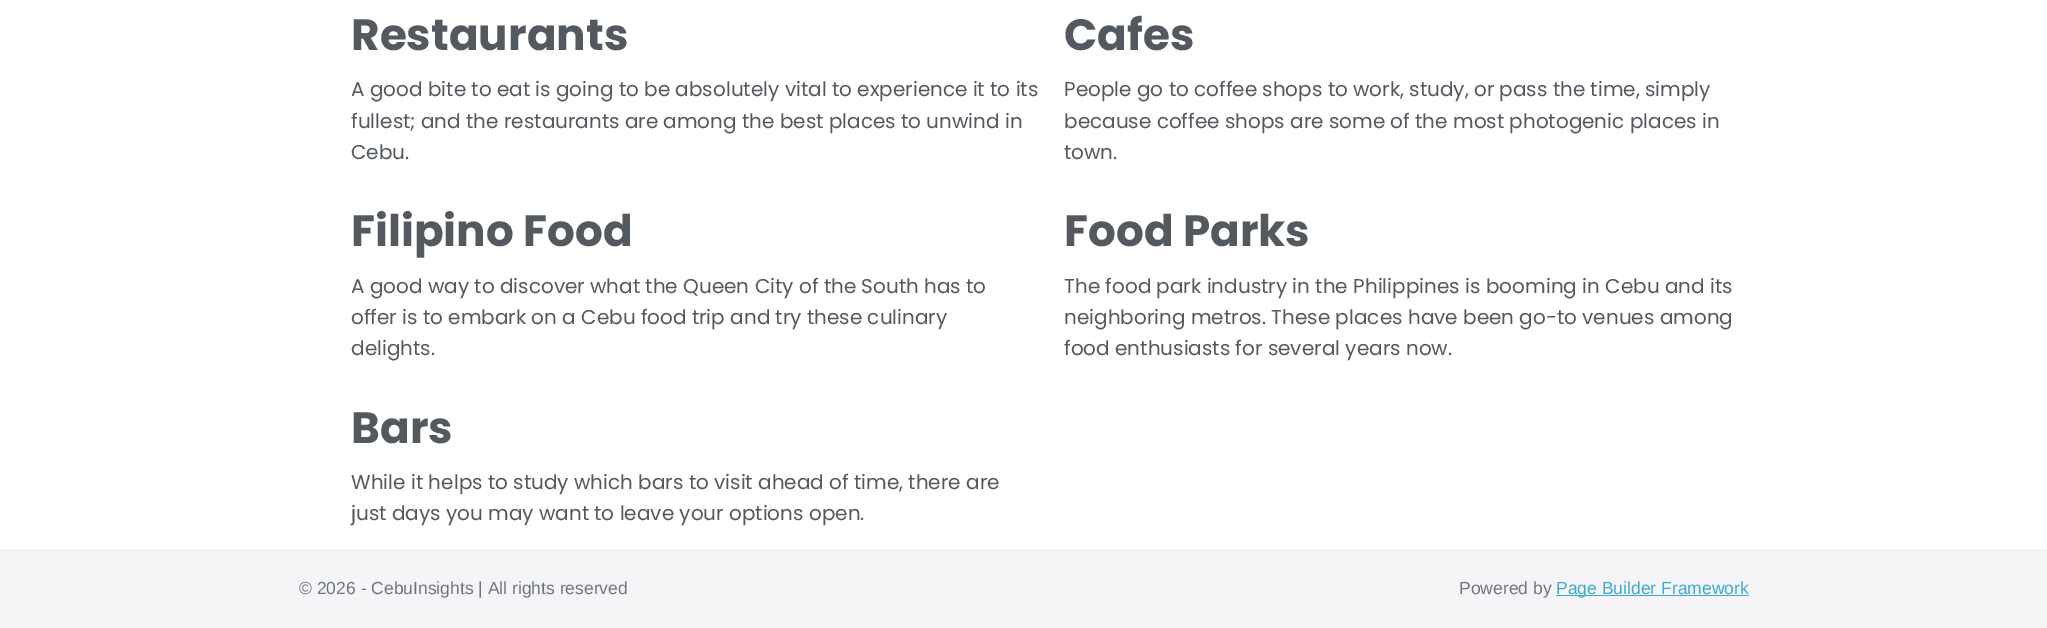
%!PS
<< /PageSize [2047 628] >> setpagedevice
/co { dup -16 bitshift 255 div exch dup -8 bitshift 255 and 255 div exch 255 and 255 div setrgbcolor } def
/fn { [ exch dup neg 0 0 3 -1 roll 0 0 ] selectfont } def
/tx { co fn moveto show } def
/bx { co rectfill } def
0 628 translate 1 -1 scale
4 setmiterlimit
0 0 2047 628 16#FFFFFF bx
0 549 2047 79 16#F5F5F7 bx
1556 595 193 1 16#3BA9D2 bx
(Restaurants) 351 50 /Poppins-Bold 43.75 16#54595F tx
(A good bite to eat is going to be absolutely vital to experience it to its) 351 96 /Poppins-Regular 20 16#54595F tx
(fullest; and the restaurants are among the best places to unwind in) 351 128 /Poppins-Regular 20 16#54595F tx
(Cebu.) 351 159 /Poppins-Regular 20 16#54595F tx
(Cafes) 1064 50 /Poppins-Bold 43.75 16#54595F tx
(People go to coffee shops to work, study, or pass the time, simply) 1064 96 /Poppins-Regular 20 16#54595F tx
(because coffee shops are some of the most photogenic places in) 1064 128 /Poppins-Regular 20 16#54595F tx
(town.) 1064 159 /Poppins-Regular 20 16#54595F tx
(Filipino Food) 351 246 /Poppins-Bold 43.75 16#54595F tx
(A good way to discover what the Queen City of the South has to) 351 293 /Poppins-Regular 20 16#54595F tx
(offer is to embark on a Cebu food trip and try these culinary) 351 324 /Poppins-Regular 20 16#54595F tx
(delights.) 351 355 /Poppins-Regular 20 16#54595F tx
(Food Parks) 1064 246 /Poppins-Bold 43.75 16#54595F tx
(The food park industry in the Philippines is booming in Cebu and its) 1064 293 /Poppins-Regular 20 16#54595F tx
(neighboring metros. These places have been go-to venues among) 1064 324 /Poppins-Regular 20 16#54595F tx
(food enthusiasts for several years now.) 1064 355 /Poppins-Regular 20 16#54595F tx
(Bars) 351 443 /Poppins-Bold 43.75 16#54595F tx
(While it helps to study which bars to visit ahead of time, there are) 351 489 /Poppins-Regular 20 16#54595F tx
(just days you may want to leave your options open.) 351 520 /Poppins-Regular 20 16#54595F tx
(© 2026 - CebuInsights | All rights reserved) 299 594 /LiberationSans-Regular 17.5 16#6D7680 tx
(Powered by) 1459 594 /LiberationSans-Regular 17.5 16#6D7680 tx
(Page Builder Framework) 1556 594 /LiberationSans-Regular 17.5 16#3BA9D2 tx
showpage
